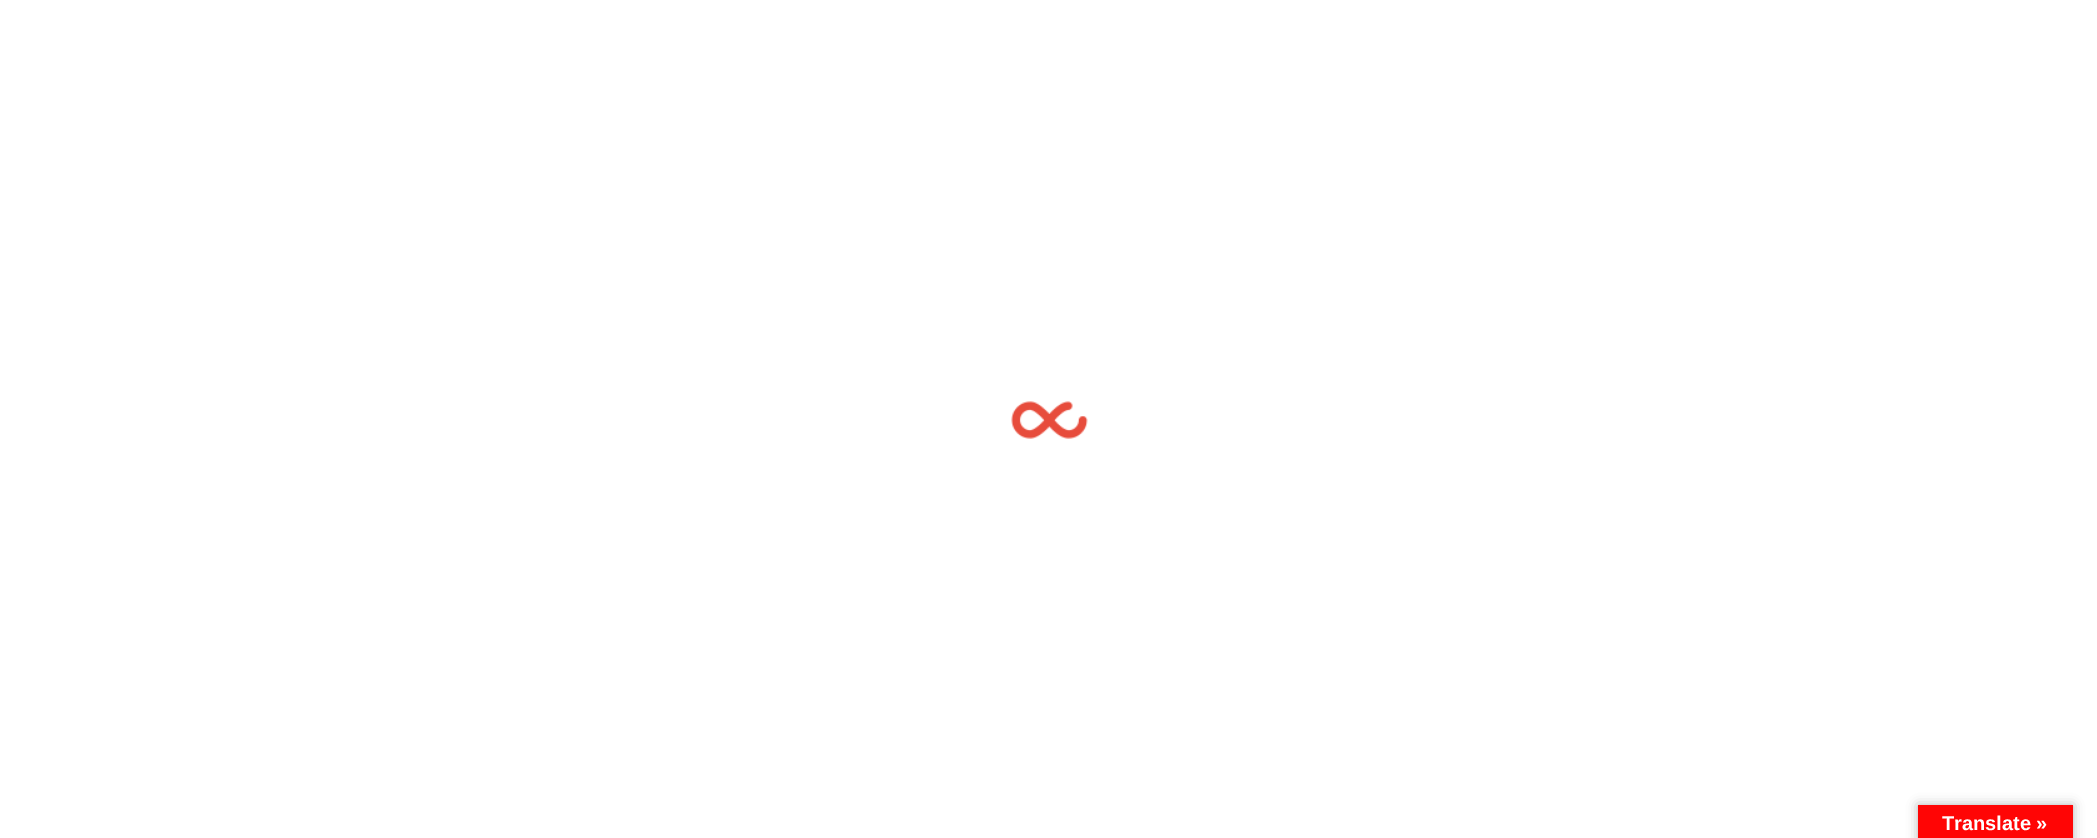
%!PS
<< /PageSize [2097 838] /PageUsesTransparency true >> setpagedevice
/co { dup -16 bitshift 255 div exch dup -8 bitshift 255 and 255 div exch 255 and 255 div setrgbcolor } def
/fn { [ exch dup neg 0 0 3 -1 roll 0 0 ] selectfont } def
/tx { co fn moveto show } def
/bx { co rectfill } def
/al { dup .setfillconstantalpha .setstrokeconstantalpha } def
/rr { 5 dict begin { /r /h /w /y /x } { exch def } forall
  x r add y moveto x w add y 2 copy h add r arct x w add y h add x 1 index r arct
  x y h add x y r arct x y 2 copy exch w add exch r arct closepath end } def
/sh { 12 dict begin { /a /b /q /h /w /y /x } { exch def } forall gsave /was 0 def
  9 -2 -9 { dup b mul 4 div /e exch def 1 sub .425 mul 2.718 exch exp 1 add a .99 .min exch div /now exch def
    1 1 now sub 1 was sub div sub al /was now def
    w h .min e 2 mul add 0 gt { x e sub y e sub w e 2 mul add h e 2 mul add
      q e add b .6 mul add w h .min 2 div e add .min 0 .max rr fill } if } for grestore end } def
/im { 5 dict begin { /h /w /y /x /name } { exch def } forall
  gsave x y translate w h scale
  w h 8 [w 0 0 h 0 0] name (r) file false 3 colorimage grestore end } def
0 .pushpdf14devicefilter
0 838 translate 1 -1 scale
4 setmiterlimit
0 0 2097 838 16#FFFFFF bx
(media/1.raw) 1011 401 77 38 im
16#000000 co
1918 805 155 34 0 5.5 .3 sh
1918 805 155 33 16#FF0505 bx
(Translate ») 1942 830 /LiberationSans-Bold 20 16#FFFFFF tx
.poppdf14devicefilter showpage
